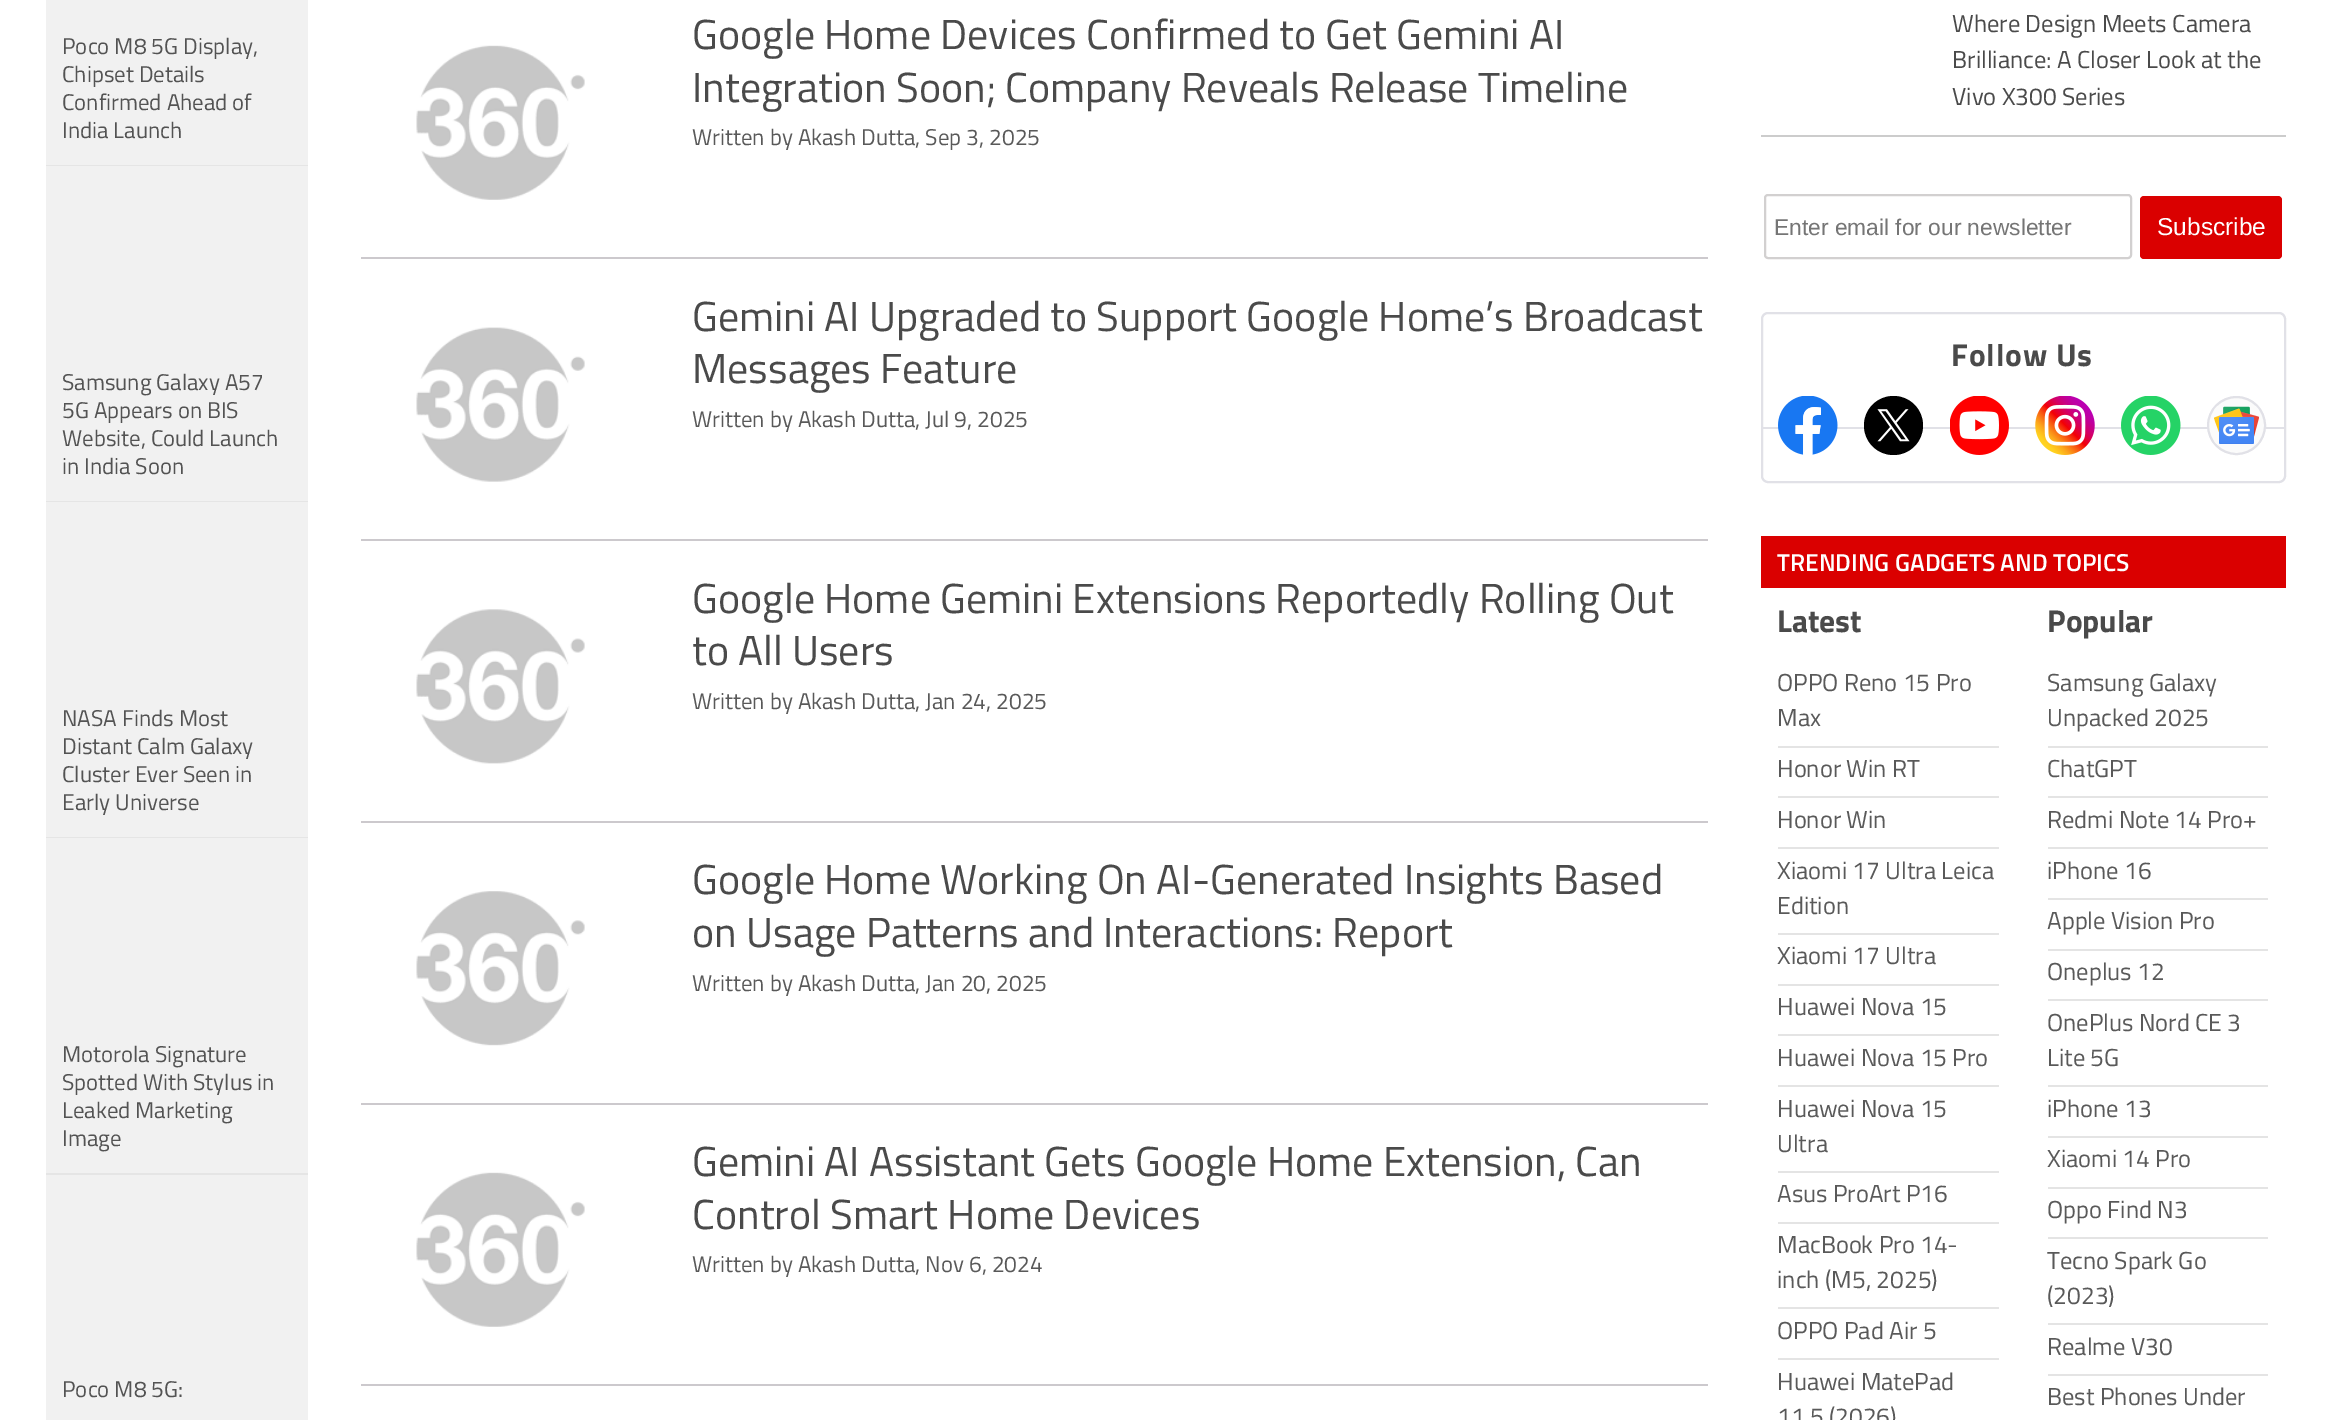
%!PS
<< /PageSize [2328 1420] >> setpagedevice
/mt/moveto load def
/fl/fill load def
/st/stroke load def
/gs/gsave load def
/gr/grestore load def
/lw/setlinewidth load def
/co { dup -16 bitshift 255 div exch dup -8 bitshift 255 and 255 div exch 255 and 255 div setrgbcolor } def
/fn { [ exch dup neg 0 0 3 -1 roll 0 0 ] selectfont } def
/tx { co fn moveto show } def
/bx { co rectfill } def
/ci { newpath 0 360 arc closepath } def
/rr { 5 dict begin { /r /h /w /y /x } { exch def } forall
  x r add y moveto x w add y 2 copy h add r arct x w add y h add x 1 index r arct
  x y h add x y r arct x y 2 copy exch w add exch r arct closepath end } def
/im { 5 dict begin { /h /w /y /x /name } { exch def } forall
  gsave x y translate w h scale
  w h 8 [w 0 0 h 0 0] name (r) file false 3 colorimage grestore end } def
0 1420 translate 1 -1 scale
4 setmiterlimit
0 0 2328 1420 16#FFFFFF bx
46 0 262 1420 16#F1F1F1 bx
46 165 262 1 16#E5E5E5 bx
46 501 262 1 16#E5E5E5 bx
46 837 262 1 16#E5E5E5 bx
46 1173 262 2 16#E5E5E5 bx
361 257 1347 2 16#CCC9CD bx
(media/1.raw) 416 45 169 155 im
361 539 1347 2 16#CCC9CD bx
(media/2.raw) 416 327 169 155 im
361 821 1347 2 16#CCC9CD bx
(media/3.raw) 416 609 169 155 im
361 1103 1347 2 16#CCC9CD bx
(media/4.raw) 416 891 169 155 im
361 1384 1347 2 16#CCC9CD bx
(media/5.raw) 416 1172 169 155 im
1761 135 525 2 16#CCCCCC bx
16#D2D0D0 co
2 lw
1765 195 366 63 3 rr st
16#DA0000 co
2140 196 142 63 4 rr fl
16#E1E1E7 co
1762 313 523 169 6 rr st
1762 427 522 2 16#E1E1E7 bx
(media/6.raw) 1778 396 60 59 im
16#000000 co
1893.5 425.5 29.5 ci fl
(media/7.raw) 1877 409 33 33 im
(media/8.raw) 1950 396 59 59 im
(media/9.raw) 2035 396 60 59 im
(media/10.raw) 2121 396 60 59 im
16#FBFBFB co
2236.5 425.5 28.5 ci gs fl gr
16#E1E1E7 co
st
(media/11.raw) 2214 406 45 38 im
1761 536 525 52 16#DA0000 bx
1778 746 221 2 16#E4E4E4 bx
1778 796 221 2 16#E4E4E4 bx
1778 847 221 2 16#E4E4E4 bx
1778 933 221 2 16#E4E4E4 bx
1778 984 221 2 16#E4E4E4 bx
1778 1034 221 2 16#E4E4E4 bx
1778 1085 221 2 16#E4E4E4 bx
1778 1171 221 2 16#E4E4E4 bx
1778 1222 221 2 16#E4E4E4 bx
1778 1307 221 2 16#E4E4E4 bx
1778 1358 221 2 16#E4E4E4 bx
2048 746 220 2 16#E4E4E4 bx
2048 796 220 2 16#E4E4E4 bx
2048 847 220 2 16#E4E4E4 bx
2048 898 220 2 16#E4E4E4 bx
2048 949 220 2 16#E4E4E4 bx
2048 999 220 2 16#E4E4E4 bx
2048 1085 220 2 16#E4E4E4 bx
2048 1136 220 2 16#E4E4E4 bx
2048 1187 220 2 16#E4E4E4 bx
2048 1237 220 2 16#E4E4E4 bx
2048 1323 220 2 16#E4E4E4 bx
2048 1374 220 2 16#E4E4E4 bx
(Poco M8 5G Display,) 62 54 /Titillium-Regular 22.75 16#535353 tx
(Chipset Details) 62 82 /Titillium-Regular 22.75 16#535353 tx
(Confirmed Ahead of) 62 110 /Titillium-Regular 22.75 16#535353 tx
(India Launch) 62 138 /Titillium-Regular 22.75 16#535353 tx
(Samsung Galaxy A57) 62 390 /Titillium-Regular 22.75 16#535353 tx
(5G Appears on BIS) 62 418 /Titillium-Regular 22.75 16#535353 tx
(Website, Could Launch) 62 446 /Titillium-Regular 22.75 16#535353 tx
(in India Soon) 62 474 /Titillium-Regular 22.75 16#535353 tx
(NASA Finds Most) 62 726 /Titillium-Regular 22.75 16#535353 tx
(Distant Calm Galaxy) 62 754 /Titillium-Regular 22.75 16#535353 tx
(Cluster Ever Seen in) 62 782 /Titillium-Regular 22.75 16#535353 tx
(Early Universe) 62 810 /Titillium-Regular 22.75 16#535353 tx
(Motorola Signature) 62 1062 /Titillium-Regular 22.75 16#535353 tx
(Spotted With Stylus in) 62 1090 /Titillium-Regular 22.75 16#535353 tx
(Leaked Marketing) 62 1118 /Titillium-Regular 22.75 16#535353 tx
(Image) 62 1146 /Titillium-Regular 22.75 16#535353 tx
(Poco M8 5G:) 62 1397 /Titillium-Regular 22.75 16#535353 tx
(Google Home Devices Confirmed to Get Gemini AI) 692 49 /Titillium-Regular 42 16#4A4A4A tx
(Integration Soon; Company Reveals Release Timeline) 692 102 /Titillium-Regular 42 16#4A4A4A tx
(Written by Akash Dutta, Sep 3, 2025) 692 145 /Titillium-Regular 22.75 16#595959 tx
(Gemini AI Upgraded to Support Google Home’s Broadcast) 692 331 /Titillium-Regular 42 16#4A4A4A tx
(Messages Feature) 692 383 /Titillium-Regular 42 16#4A4A4A tx
(Written by Akash Dutta, Jul 9, 2025) 692 427 /Titillium-Regular 22.75 16#595959 tx
(Google Home Gemini Extensions Reportedly Rolling Out) 692 613 /Titillium-Regular 42 16#4A4A4A tx
(to All Users) 692 665 /Titillium-Regular 42 16#4A4A4A tx
(Written by Akash Dutta, Jan 24, 2025) 692 709 /Titillium-Regular 22.75 16#595959 tx
(Google Home Working On AI-Generated Insights Based) 692 894 /Titillium-Regular 42 16#4A4A4A tx
(on Usage Patterns and Interactions: Report) 692 947 /Titillium-Regular 42 16#4A4A4A tx
(Written by Akash Dutta, Jan 20, 2025) 692 991 /Titillium-Regular 22.75 16#595959 tx
(Gemini AI Assistant Gets Google Home Extension, Can) 692 1176 /Titillium-Regular 42 16#4A4A4A tx
(Control Smart Home Devices) 692 1229 /Titillium-Regular 42 16#4A4A4A tx
(Written by Akash Dutta, Nov 6, 2024) 692 1272 /Titillium-Regular 22.75 16#595959 tx
(Where Design Meets Camera) 1952 32 /Titillium-Regular 24.5 16#4A4A4A tx
(Brilliance: A Closer Look at the) 1952 68 /Titillium-Regular 24.5 16#4A4A4A tx
(Vivo X300 Series) 1952 105 /Titillium-Regular 24.5 16#4A4A4A tx
(Enter email for our newsletter) 1774 235 /LiberationSans-Regular 22.75 16#757575 tx
(Subscribe) 2157 235 /LiberationSans-Regular 24.5 16#FFFFFF tx
/Titillium-Bold 31.5 fn
16#4A4A4A co
1951 366 mt .9 0 (Follow Us) ashow
(TRENDING GADGETS AND TOPICS) 1777 571 /TitilliumWeb-SemiBold 24.5 16#FFFFFF tx
(Latest) 1777 632 /Titillium-Bold 31.5 16#4A4A4A tx
(OPPO Reno 15 Pro) 1777 691 /Titillium-Regular 24.5 16#595959 tx
(Max) 1777 726 /Titillium-Regular 24.5 16#595959 tx
(Honor Win RT) 1777 777 /Titillium-Regular 24.5 16#595959 tx
(Honor Win) 1777 828 /Titillium-Regular 24.5 16#595959 tx
(Xiaomi 17 Ultra Leica) 1777 879 /Titillium-Regular 24.5 16#595959 tx
(Edition) 1777 914 /Titillium-Regular 24.5 16#595959 tx
(Xiaomi 17 Ultra) 1777 964 /Titillium-Regular 24.5 16#595959 tx
(Huawei Nova 15) 1777 1015 /Titillium-Regular 24.5 16#595959 tx
(Huawei Nova 15 Pro) 1777 1066 /Titillium-Regular 24.5 16#595959 tx
(Huawei Nova 15) 1777 1117 /Titillium-Regular 24.5 16#595959 tx
(Ultra) 1777 1152 /Titillium-Regular 24.5 16#595959 tx
(Asus ProArt P16) 1777 1202 /Titillium-Regular 24.5 16#595959 tx
(MacBook Pro 14-) 1777 1253 /Titillium-Regular 24.5 16#595959 tx
(inch \(M5, 2025\)) 1777 1288 /Titillium-Regular 24.5 16#595959 tx
(OPPO Pad Air 5) 1777 1339 /Titillium-Regular 24.5 16#595959 tx
(Huawei MatePad) 1777 1390 /Titillium-Regular 24.5 16#595959 tx
(11.5 \(2026\)) 1777 1425 /Titillium-Regular 24.5 16#595959 tx
(Popular) 2047 632 /Titillium-Bold 31.5 16#4A4A4A tx
(Samsung Galaxy) 2047 691 /Titillium-Regular 24.5 16#595959 tx
(Unpacked 2025) 2047 726 /Titillium-Regular 24.5 16#595959 tx
(ChatGPT) 2047 777 /Titillium-Regular 24.5 16#595959 tx
(Redmi Note 14 Pro+) 2047 828 /Titillium-Regular 24.5 16#595959 tx
(iPhone 16) 2047 879 /Titillium-Regular 24.5 16#595959 tx
(Apple Vision Pro) 2047 929 /Titillium-Regular 24.5 16#595959 tx
(Oneplus 12) 2047 980 /Titillium-Regular 24.5 16#595959 tx
(OnePlus Nord CE 3) 2047 1031 /Titillium-Regular 24.5 16#595959 tx
(Lite 5G) 2047 1066 /Titillium-Regular 24.5 16#595959 tx
(iPhone 13) 2047 1117 /Titillium-Regular 24.5 16#595959 tx
(Xiaomi 14 Pro) 2047 1167 /Titillium-Regular 24.5 16#595959 tx
(Oppo Find N3) 2047 1218 /Titillium-Regular 24.5 16#595959 tx
(Tecno Spark Go) 2047 1269 /Titillium-Regular 24.5 16#595959 tx
(\(2023\)) 2047 1304 /Titillium-Regular 24.5 16#595959 tx
(Realme V30) 2047 1355 /Titillium-Regular 24.5 16#595959 tx
(Best Phones Under) 2047 1405 /Titillium-Regular 24.5 16#595959 tx
showpage
